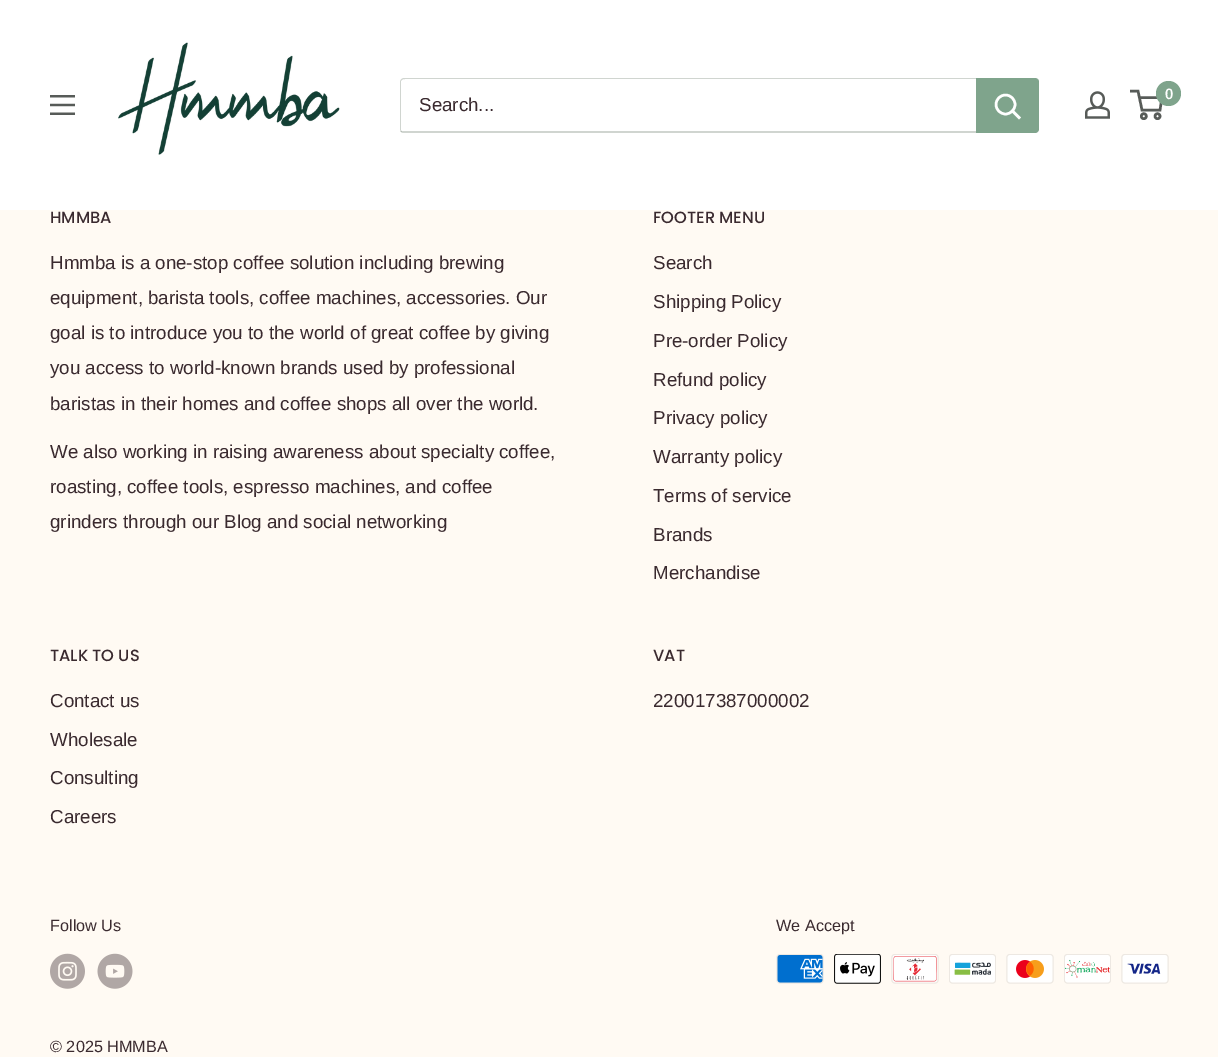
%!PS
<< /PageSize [1218 1057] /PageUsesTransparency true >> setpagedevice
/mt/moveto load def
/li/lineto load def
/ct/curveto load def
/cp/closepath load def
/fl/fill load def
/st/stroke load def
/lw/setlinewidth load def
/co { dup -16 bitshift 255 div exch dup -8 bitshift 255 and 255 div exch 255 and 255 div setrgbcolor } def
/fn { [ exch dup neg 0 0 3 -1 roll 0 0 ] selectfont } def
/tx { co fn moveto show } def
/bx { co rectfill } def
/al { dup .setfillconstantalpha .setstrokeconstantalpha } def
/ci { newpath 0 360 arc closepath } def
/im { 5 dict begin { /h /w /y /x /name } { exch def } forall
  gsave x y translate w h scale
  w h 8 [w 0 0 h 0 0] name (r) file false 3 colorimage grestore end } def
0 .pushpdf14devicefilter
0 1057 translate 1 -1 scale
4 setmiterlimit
0 0 1218 1057 16#FFFAF3 bx
0 0 1218 210 16#FFFFFF bx
(media/1.raw) 50 95 25 20 im
(media/2.raw) 118 42 222 113 im
16#D0D5D0 co
400 131 mt 401 132 402 133 404 133 ct 1035 133 li 1037 133 1039 131 1039 129 ct 1039 82 li 1039 81 1039 80 1038 79 ct 1038 120 li 1038 124 1040 131 1034 131 ct cp fl
0.3 al
16#637463 co
405 79 mt 1036 79 li 1038 79 li 1037 79 1036 78 1035 78 ct 404 78 li 402 78 400 80 400 82 ct 400 129 li 400 130 401 132 402 132 ct 401 130 li 401 81 li 402 79 404 79 405 79 ct cp fl
1 al
16#7FA48C co
976 78 mt 1035 78 li 1037 78 1039 80 1039 82 ct 1039 129 li 1039 131 1037 133 1035 133 ct 976 133 li cp fl
16#FFFFFF co
2.5 lw
2 setlinecap
1019 117.5 mt 1012.5 111 li st
0 setlinecap
1005.5 104.5 9.5 ci st
(media/3.raw) 1085 91 25 28 im
16#575B58 co
1143.8 116.2 2.5 ci st
1157.5 116.2 2.5 ci st
1139 97.5 mt 1162 97.5 li 1160 110 li 1142 110 li 1138 91 li 1130 91 li st
16#7FA48C co
1168.5 93.5 12.5 ci fl
(media/4.raw) 50 953 35 36 im
(media/5.raw) 97 953 36 36 im
(media/6.raw) 776 954 48 30 im
(media/7.raw) 834 954 47 30 im
(media/8.raw) 891 954 48 30 im
(media/9.raw) 949 954 47 30 im
(media/10.raw) 1006 954 48 30 im
(media/11.raw) 1064 954 47 30 im
(media/12.raw) 1121 954 48 30 im
(Search...) 419 111 /Arimo-Regular 18.75 16#3A2A2F tx
(0) 1165 99 /Arimo-SemiBold 15 16#FFFFFF tx
(HMMBA) 50 223 /Poppins-Medium 16.25 16#3A2A2F tx
(Hmmba is a one-stop coffee solution including brewing) 50 269 /Arimo-Regular 18.75 16#3A2A2F tx
(equipment, barista tools, coffee machines, accessories. Our) 50 304 /Arimo-Regular 18.75 16#3A2A2F tx
(goal is to introduce you to the world of great coffee by giving) 50 339 /Arimo-Regular 18.75 16#3A2A2F tx
(you access to world-known brands used by professional) 50 374 /Arimo-Regular 18.75 16#3A2A2F tx
(baristas in their homes and coffee shops all over the world.) 50 410 /Arimo-Regular 18.75 16#3A2A2F tx
(We also working in raising awareness about specialty coffee,) 50 458 /Arimo-Regular 18.75 16#3A2A2F tx
(roasting, coffee tools, espresso machines, and coffee) 50 493 /Arimo-Regular 18.75 16#3A2A2F tx
(grinders through our Blog and social networking) 50 528 /Arimo-Regular 18.75 16#3A2A2F tx
(FOOTER MENU) 653 223 /Poppins-Medium 16.25 16#3A2A2F tx
(Search) 653 269 /Arimo-Regular 18.75 16#3A2A2F tx
(Shipping Policy) 653 308 /Arimo-Regular 18.75 16#3A2A2F tx
(Pre-order Policy) 653 347 /Arimo-Regular 18.75 16#3A2A2F tx
(Refund policy) 653 386 /Arimo-Regular 18.75 16#3A2A2F tx
(Privacy policy) 653 424 /Arimo-Regular 18.75 16#3A2A2F tx
(Warranty policy) 653 463 /Arimo-Regular 18.75 16#3A2A2F tx
(Terms of service) 653 502 /Arimo-Regular 18.75 16#3A2A2F tx
(Brands) 653 541 /Arimo-Regular 18.75 16#3A2A2F tx
(Merchandise) 653 579 /Arimo-Regular 18.75 16#3A2A2F tx
(TALK TO US) 50 661 /Poppins-Medium 16.25 16#3A2A2F tx
(Contact us) 50 707 /Arimo-Regular 18.75 16#3A2A2F tx
(Wholesale) 50 746 /Arimo-Regular 18.75 16#3A2A2F tx
(Consulting) 50 784 /Arimo-Regular 18.75 16#3A2A2F tx
(Careers) 50 823 /Arimo-Regular 18.75 16#3A2A2F tx
(VAT) 653 661 /Poppins-Medium 16.25 16#3A2A2F tx
(220017387000002) 653 707 /Arimo-Regular 18.75 16#3A2A2F tx
(Follow Us) 50 931 /Arimo-Regular 16.25 16#3A2A2F tx
(We Accept) 776 931 /Arimo-Regular 16.25 16#3A2A2F tx
(© 2025 HMMBA) 50 1052 /Arimo-Regular 16.25 16#3A2A2F tx
.poppdf14devicefilter showpage
